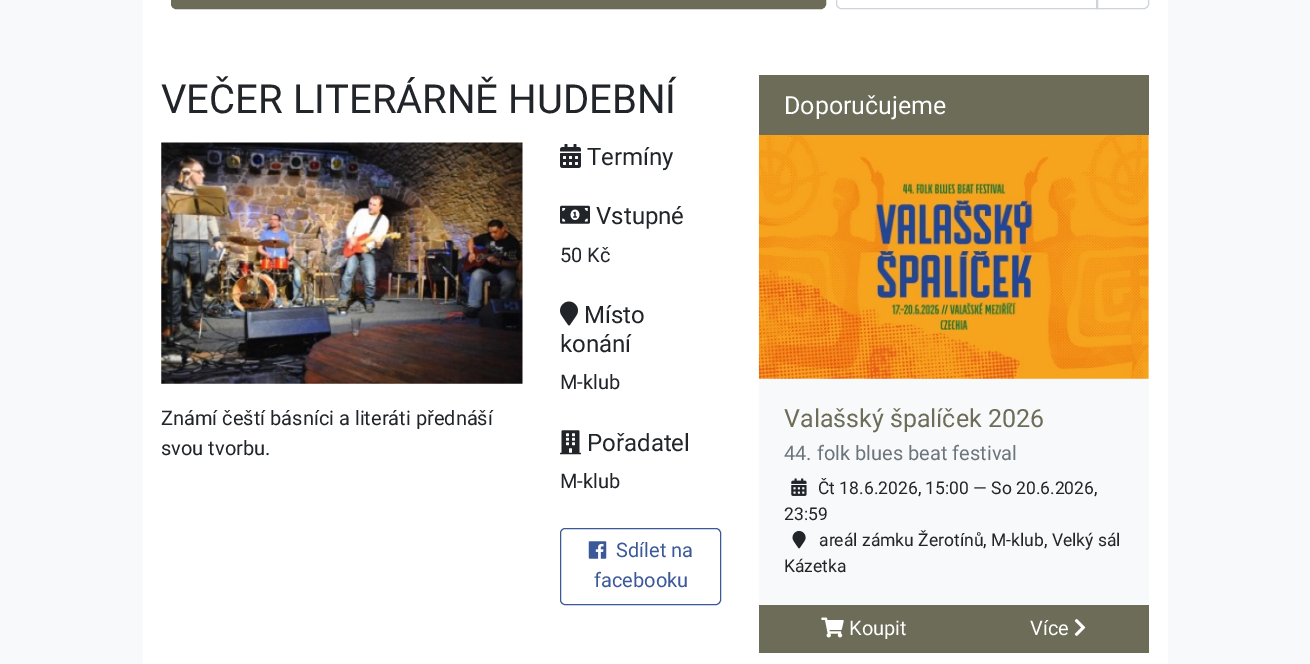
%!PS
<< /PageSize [1310 664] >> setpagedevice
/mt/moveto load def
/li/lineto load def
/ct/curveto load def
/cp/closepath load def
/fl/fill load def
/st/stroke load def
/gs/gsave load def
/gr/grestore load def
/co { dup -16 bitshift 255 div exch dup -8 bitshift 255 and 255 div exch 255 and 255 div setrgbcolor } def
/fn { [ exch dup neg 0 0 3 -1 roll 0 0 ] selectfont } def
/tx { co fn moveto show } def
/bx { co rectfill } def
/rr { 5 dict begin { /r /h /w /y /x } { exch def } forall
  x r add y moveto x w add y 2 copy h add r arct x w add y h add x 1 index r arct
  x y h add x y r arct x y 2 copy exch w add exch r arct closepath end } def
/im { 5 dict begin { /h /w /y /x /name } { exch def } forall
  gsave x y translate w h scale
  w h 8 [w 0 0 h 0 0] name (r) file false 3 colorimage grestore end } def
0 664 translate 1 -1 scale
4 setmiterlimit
0 0 1310 664 16#F8F9FA bx
143 0 1025 664 16#FFFFFF bx
16#6C6C58 co
171.5 -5.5 654 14 4.5 rr gs fl gr
st
16#CED4DA co
841 -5.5 mt 1097.5 -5.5 li 1097.5 8.5 li 841 8.5 li 838.5 8.5 836.5 6.5 836.5 4 ct 836.5 -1 li 836.5 -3.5 838.5 -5.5 841 -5.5 ct cp st
1096.5 -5.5 mt 1144 -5.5 li 1146.5 -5.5 1148.5 -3.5 1148.5 -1 ct 1148.5 4 li 1148.5 6.5 1146.5 8.5 1144 8.5 ct 1096.5 8.5 li cp st
(media/1.raw) 161 142 362 242 im
(media/2.raw) 560 144 21 24 im
(media/3.raw) 560 205 30 19 im
(media/4.raw) 560 301 18 25 im
(media/5.raw) 560 430 21 25 im
16#3B5998 co
560.5 528.5 160 76 4.5 rr st
(media/6.raw) 588 541 19 18 im
759 135 390 470 16#F8F9FA bx
759 75 390 60 16#6C6C58 bx
(media/7.raw) 758 135 391 244 im
(media/8.raw) 791 478 16 18 im
(media/9.raw) 792 531 14 18 im
759 605 390 48 16#6C6C58 bx
(media/10.raw) 821 617 23 21 im
(media/11.raw) 1074 619 12 17 im
(VEČER LITERÁRNĚ HUDEBNÍ) 161 113 /Roboto-Regular 40 16#212529 tx
(Známí čeští básníci a literáti přednáší) 161 425 /Roboto-Regular 20 16#212529 tx
(svou tvorbu.) 161 455 /Roboto-Regular 20 16#212529 tx
(Termíny) 587 165 /Roboto-Regular 24 16#212529 tx
(Vstupné) 596 224 /Roboto-Regular 24 16#212529 tx
(50 Kč) 560 262 /Roboto-Regular 20 16#212529 tx
(Místo) 584 323 /Roboto-Regular 24 16#212529 tx
(konání) 560 352 /Roboto-Regular 24 16#212529 tx
(M-klub) 560 389 /Roboto-Regular 20 16#212529 tx
(Pořadatel) 587 451 /Roboto-Regular 24 16#212529 tx
(M-klub) 560 488 /Roboto-Regular 20 16#212529 tx
(Sdílet na) 616 557 /Roboto-Regular 20 16#3B5998 tx
(facebooku) 594 587 /Roboto-Regular 20 16#3B5998 tx
(Doporučujeme) 784 114 /Roboto-Regular 25 16#FFFFFF tx
(Valašský špalíček 2026) 784 427 /Roboto-Regular 25 16#6C6C58 tx
(44. folk blues beat festival) 784 460 /Roboto-Regular 20 16#6C757D tx
(Čt 18.6.2026, 15:00 — So 20.6.2026,) 818 494 /Roboto-Regular 17.5 16#212529 tx
(23:59) 784 520 /Roboto-Regular 17.5 16#212529 tx
(areál zámku Žerotínů, M-klub, Velký sál) 819 546 /Roboto-Regular 17.5 16#212529 tx
(Kázetka) 784 572 /Roboto-Regular 17.5 16#212529 tx
(Koupit) 849 635 /Roboto-Regular 20 16#FFFFFF tx
(Více) 1030 635 /Roboto-Regular 20 16#FFFFFF tx
showpage
